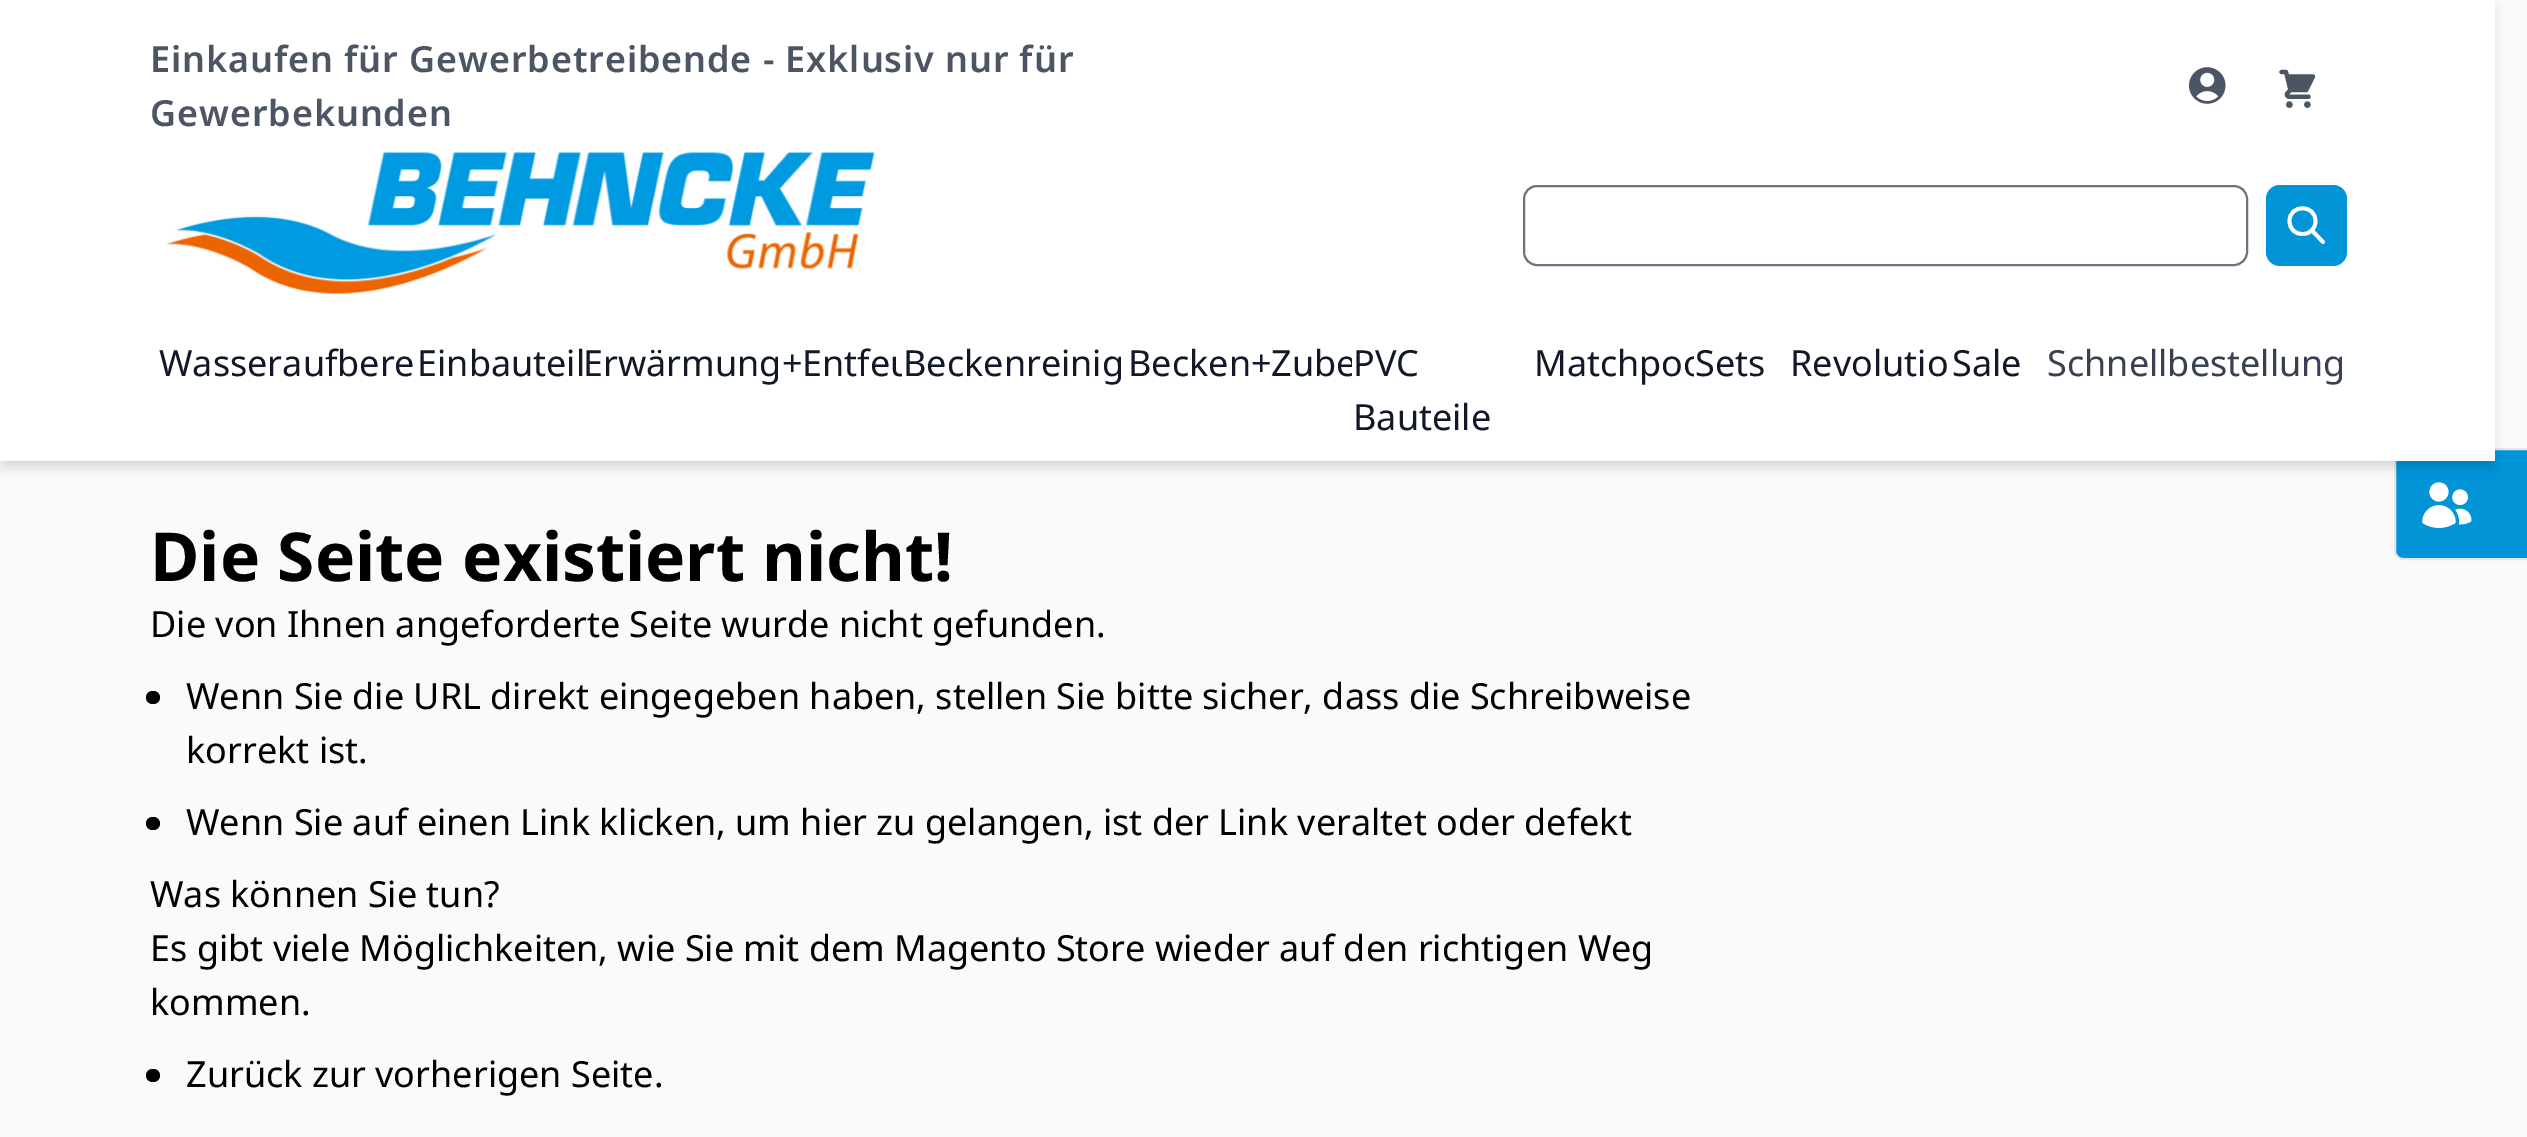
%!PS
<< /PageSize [2527 1137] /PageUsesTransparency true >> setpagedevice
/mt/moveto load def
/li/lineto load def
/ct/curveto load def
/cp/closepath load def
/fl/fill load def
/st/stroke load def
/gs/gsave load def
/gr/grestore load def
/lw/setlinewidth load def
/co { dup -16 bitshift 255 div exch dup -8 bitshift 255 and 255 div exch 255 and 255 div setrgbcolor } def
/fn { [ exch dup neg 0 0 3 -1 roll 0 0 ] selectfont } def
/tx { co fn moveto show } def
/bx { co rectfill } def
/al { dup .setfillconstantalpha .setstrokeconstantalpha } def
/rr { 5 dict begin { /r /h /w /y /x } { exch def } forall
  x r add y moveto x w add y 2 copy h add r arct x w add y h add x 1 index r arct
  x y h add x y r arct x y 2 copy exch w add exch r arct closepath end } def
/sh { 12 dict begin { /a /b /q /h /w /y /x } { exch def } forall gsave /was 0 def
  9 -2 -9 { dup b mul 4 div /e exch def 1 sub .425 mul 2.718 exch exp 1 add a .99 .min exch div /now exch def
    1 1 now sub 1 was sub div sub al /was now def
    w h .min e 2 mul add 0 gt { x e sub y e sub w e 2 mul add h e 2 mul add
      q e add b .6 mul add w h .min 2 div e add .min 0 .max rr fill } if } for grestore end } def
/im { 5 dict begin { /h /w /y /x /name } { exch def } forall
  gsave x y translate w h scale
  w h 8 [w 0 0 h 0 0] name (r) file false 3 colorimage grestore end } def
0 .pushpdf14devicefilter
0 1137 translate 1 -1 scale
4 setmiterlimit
0 0 2527 1137 16#FAFAFA bx
16#0195D8 co
2395 449 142 110 8 rr gs fl gr
16#E5E7EB co
2 lw
st
16#000000 co
5 9 2486 452 0 4.5 .1 sh
(media/4.raw) 2422 482 50 46 im
2 11 2491 457 0 7 .1 sh
0 0 2495 461 16#FFFFFF bx
(media/1.raw) 2189 67 37 37 im
(media/2.raw) 2279 69 37 39 im
(media/3.raw) 166 152 709 143 im
16#6B7280 co
1524 186 723 79 13 rr st
16#0195D8 co
2266 185 81 81 14 rr fl
16#FFFFFF co
3.8 lw
1 setlinecap
1 setlinejoin
2323 242 mt 2312 230.5 li 2315.5 221 mt 2315.5 238.5 2289.5 238.5 2289.5 221 ct 2289.5 204 2315.5 204 2315.5 221 ct cp st
16#000000 co
146 691 14 13 6.5 rr fl
146 817 14 13 6.5 rr fl
146 1069 14 13 6.5 rr fl
/NotoSans-SemiBold 36 fn
16#4B5563 co
150 72 mt .9 0 (Einkaufen für Gewerbetreibende - Exklusiv nur für) ashow
150 126 mt .9 0 (Gewerbekunden) ashow
(Wasseraufbere) 159 376 /NotoSans-Regular 36 16#111827 tx
(Einbauteil) 417 376 /NotoSans-Regular 36 16#111827 tx
gs
583 317 319 144 rectclip
(Erwärmung+Entfeu) 583 376 /NotoSans-Regular 36 16#111827 tx
gr
(Beckenreinig) 903 376 /NotoSans-Regular 36 16#111827 tx
gs
1127 317 225 144 rectclip
(Becken+Zube) 1128 376 /NotoSans-Regular 36 16#111827 tx
gr
(PVC) 1353 376 /NotoSans-Regular 36 16#111827 tx
(Bauteile) 1353 430 /NotoSans-Regular 36 16#111827 tx
gs
1535 317 159 144 rectclip
(Matchpoo) 1534 376 /NotoSans-Regular 36 16#111827 tx
gr
(Sets) 1695 376 /NotoSans-Regular 36 16#111827 tx
(Revolutio) 1790 376 /NotoSans-Regular 36 16#111827 tx
(Sale) 1952 376 /NotoSans-Regular 36 16#111827 tx
(Schnellbestellung) 2047 376 /NotoSans-Regular 36 16#374151 tx
(Die Seite existiert nicht!) 150 581 /NotoSans-Bold 67.5 16#000000 tx
(Die von Ihnen angeforderte Seite wurde nicht gefunden.) 150 637 /NotoSans-Regular 36 16#000000 tx
(Wenn Sie die URL direkt eingegeben haben, stellen Sie bitte sicher, dass die Schreibweise) 186 709 /NotoSans-Regular 36 16#000000 tx
(korrekt ist.) 186 763 /NotoSans-Regular 36 16#000000 tx
(Wenn Sie auf einen Link klicken, um hier zu gelangen, ist der Link veraltet oder defekt) 186 835 /NotoSans-Regular 36 16#000000 tx
(Was können Sie tun?) 150 907 /NotoSans-Regular 36 16#000000 tx
(Es gibt viele Möglichkeiten, wie Sie mit dem Magento Store wieder auf den richtigen Weg) 150 961 /NotoSans-Regular 36 16#000000 tx
(kommen.) 150 1015 /NotoSans-Regular 36 16#000000 tx
(Zurück zur vorherigen Seite.) 186 1087 /NotoSans-Regular 36 16#000000 tx
.poppdf14devicefilter showpage
